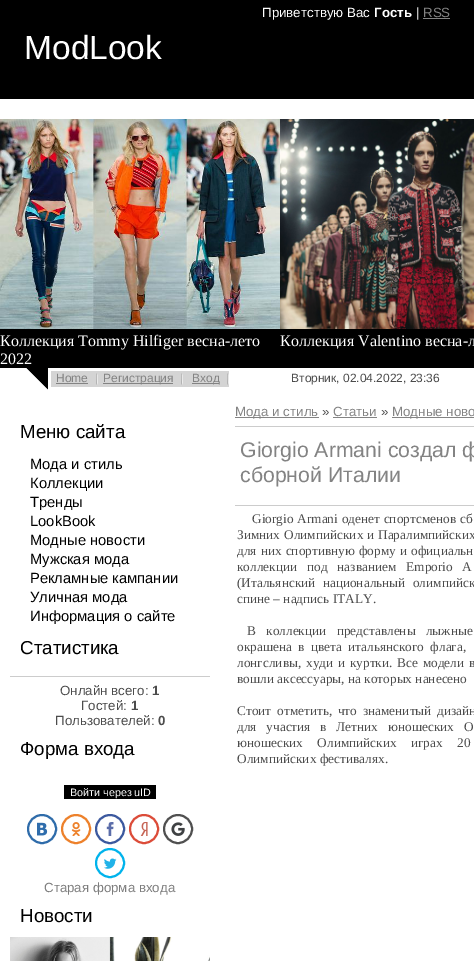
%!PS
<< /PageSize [474 961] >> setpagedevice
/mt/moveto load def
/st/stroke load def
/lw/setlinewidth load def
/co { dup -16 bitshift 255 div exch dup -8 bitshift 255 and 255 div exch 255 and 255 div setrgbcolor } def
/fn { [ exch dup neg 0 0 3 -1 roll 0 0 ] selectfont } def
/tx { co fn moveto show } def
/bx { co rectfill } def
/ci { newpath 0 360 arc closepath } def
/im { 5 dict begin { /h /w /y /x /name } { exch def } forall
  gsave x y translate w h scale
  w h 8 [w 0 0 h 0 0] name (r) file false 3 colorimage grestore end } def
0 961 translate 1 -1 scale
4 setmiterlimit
0 0 474 961 16#FFFFFF bx
0 0 474 99 16#000000 bx
423 18 27 1 16#838383 bx
0 329 474 39 16#000000 bx
(media/1.raw) 0 119 280 210 im
(media/2.raw) 280 119 194 210 im
(media/3.raw) 26 368 22 22 im
51 371 178 16 16#D4D4D4 bx
56 383 32 1 16#838383 bx
(media/4.raw) 96 373 2 12 im
103 383 70 1 16#838383 bx
(media/4.raw) 181 373 2 12 im
192 383 27 1 16#838383 bx
(media/4.raw) 227 373 2 12 im
10 676 200 1 16#CCCCCC bx
64 785 92 14 16#000000 bx
(media/5.raw) 37 822 11 14 im
16#2F6CAA co
2 lw
42 829 14 ci st
(media/6.raw) 71 822 10 14 im
16#ED812B co
76 829 14 ci st
(media/7.raw) 106 822 8 14 im
16#3C599F co
110 829 14 ci st
(media/8.raw) 140 822 8 14 im
16#DC4C39 co
144 829 14 ci st
(media/9.raw) 171 822 14 14 im
16#505050 co
178 829 14 ci st
(media/10.raw) 104 858 13 11 im
16#00B3EC co
110 863 14 ci st
(media/11.raw) 10 937 200 24 im
235 417 84 1 16#838383 bx
333 417 44 1 16#838383 bx
392 417 82 1 16#838383 bx
235 426 239 1 16#CCCCCC bx
235 505 239 1 16#CCCCCC bx
(Приветствую Вас) 262 17 /LiberationSans-Regular 13.3 16#FFFFFF tx
(Гость) 374 17 /LiberationSans-Bold 13.3 16#FFFFFF tx
(|) 416 17 /LiberationSans-Regular 13.3 16#FFFFFF tx
(RSS) 423 17 /LiberationSans-Regular 13.3 16#838383 tx
(ModLook) 24 59 /LiberationSans-Regular 33.5 16#FFFFFF tx
(Коллекция Tommy Hilfiger весна-лето) 0 346 /LiberationSerif-Regular 16 16#FFFFFF tx
(2022) 0 364 /LiberationSerif-Regular 16 16#FFFFFF tx
(Коллекция Valentino весна-л) 280 346 /LiberationSerif-Regular 16 16#FFFFFF tx
(Home) 56 382 /LiberationSans-Regular 12 16#838383 tx
(Регистрация) 103 382 /LiberationSans-Regular 12 16#838383 tx
(Вход) 192 382 /LiberationSans-Regular 12 16#838383 tx
(Вторник, 02.04.2022, 23:36) 291 382 /LiberationSans-Regular 12 16#4C4C4C tx
(Меню сайта) 20 438 /LiberationSans-Regular 18.75 16#000000 tx
(Мода и стиль) 30 469 /LiberationSans-Regular 14.75 16#000000 tx
(Коллекции) 30 488 /LiberationSans-Regular 14.75 16#000000 tx
(Тренды) 30 507 /LiberationSans-Regular 14.75 16#000000 tx
(LookBook) 30 526 /LiberationSans-Regular 14.75 16#000000 tx
(Модные новости) 30 545 /LiberationSans-Regular 14.75 16#000000 tx
(Мужская мода) 30 564 /LiberationSans-Regular 14.75 16#000000 tx
(Рекламные кампании) 30 583 /LiberationSans-Regular 14.75 16#000000 tx
(Уличная мода) 30 602 /LiberationSans-Regular 14.75 16#000000 tx
(Информация о сайте) 30 621 /LiberationSans-Regular 14.75 16#000000 tx
(Статистика) 20 654 /LiberationSans-Regular 18.75 16#000000 tx
(Онлайн всего:) 60 695 /LiberationSans-Regular 13.3 16#4C4C4C tx
(1) 152 695 /LiberationSans-Bold 13.3 16#4C4C4C tx
(Гостей:) 81 710 /LiberationSans-Regular 13.3 16#4C4C4C tx
(1) 131 710 /LiberationSans-Bold 13.3 16#4C4C4C tx
(Пользователей:) 55 725 /LiberationSans-Regular 13.3 16#4C4C4C tx
(0) 158 725 /LiberationSans-Bold 13.3 16#4C4C4C tx
(Форма входа) 20 755 /LiberationSans-Regular 18.75 16#000000 tx
(Войти через uID) 70 796 /LiberationSans-Regular 10.75 16#FFFFFF tx
(Старая форма входа) 44 892 /LiberationSans-Regular 13.3 16#7D7D7D tx
(Новости) 20 922 /LiberationSans-Regular 18.75 16#000000 tx
(Мода и стиль) 235 416 /LiberationSans-Regular 13.3 16#838383 tx
(») 322 416 /LiberationSans-Regular 13.3 16#4C4C4C tx
(Статьи) 333 416 /LiberationSans-Regular 13.3 16#838383 tx
(») 381 416 /LiberationSans-Regular 13.3 16#4C4C4C tx
(Модные ново) 392 416 /LiberationSans-Regular 13.3 16#838383 tx
(Giorgio Armani создал ф) 240 457 /LiberationSans-Regular 21.25 16#838383 tx
(сборной Италии) 240 482 /LiberationSans-Regular 21.25 16#838383 tx
/LiberationSerif-Regular 13.3 fn
16#4C4C4C co
252 523 mt .5 0 32 (Giorgio Armani оденет спортсменов сб) widthshow
237 539 mt .5 0 32 (Зимних Олимпийских и Паралимпийских) widthshow
237 555 mt .75 0 32 (для них спортивную форму и официальн) widthshow
237 571 mt 6.5 0 32 (коллекции под названием Emporio A) widthshow
237 587 mt 4 0 32 (\(Итальянский национальный олимпийск) widthshow
(спине – надпись ITALY.) 237 603 /LiberationSerif-Regular 13.3 16#4C4C4C tx
247 635 mt 7 0 32 (В коллекции представлены лыжные) widthshow
237 651 mt 3 0 32 (окрашена в цвета итальянского флага,) widthshow
237 667 mt 1.5 0 32 (лонгсливы, худи и куртки. Все модели в) widthshow
(вошли аксессуары, на которых нанесено) 237 683 /LiberationSerif-Regular 13.3 16#4C4C4C tx
237 715 mt 2.5 0 32 (Стоит отметить, что знаменитый дизайн) widthshow
237 731 mt 6.5 0 32 (для участия в Летних юношеских О) widthshow
237 747 mt 11 0 32 (юношеских Олимпийских играх 20) widthshow
(Олимпийских фестивалях.) 237 763 /LiberationSerif-Regular 13.3 16#4C4C4C tx
showpage
